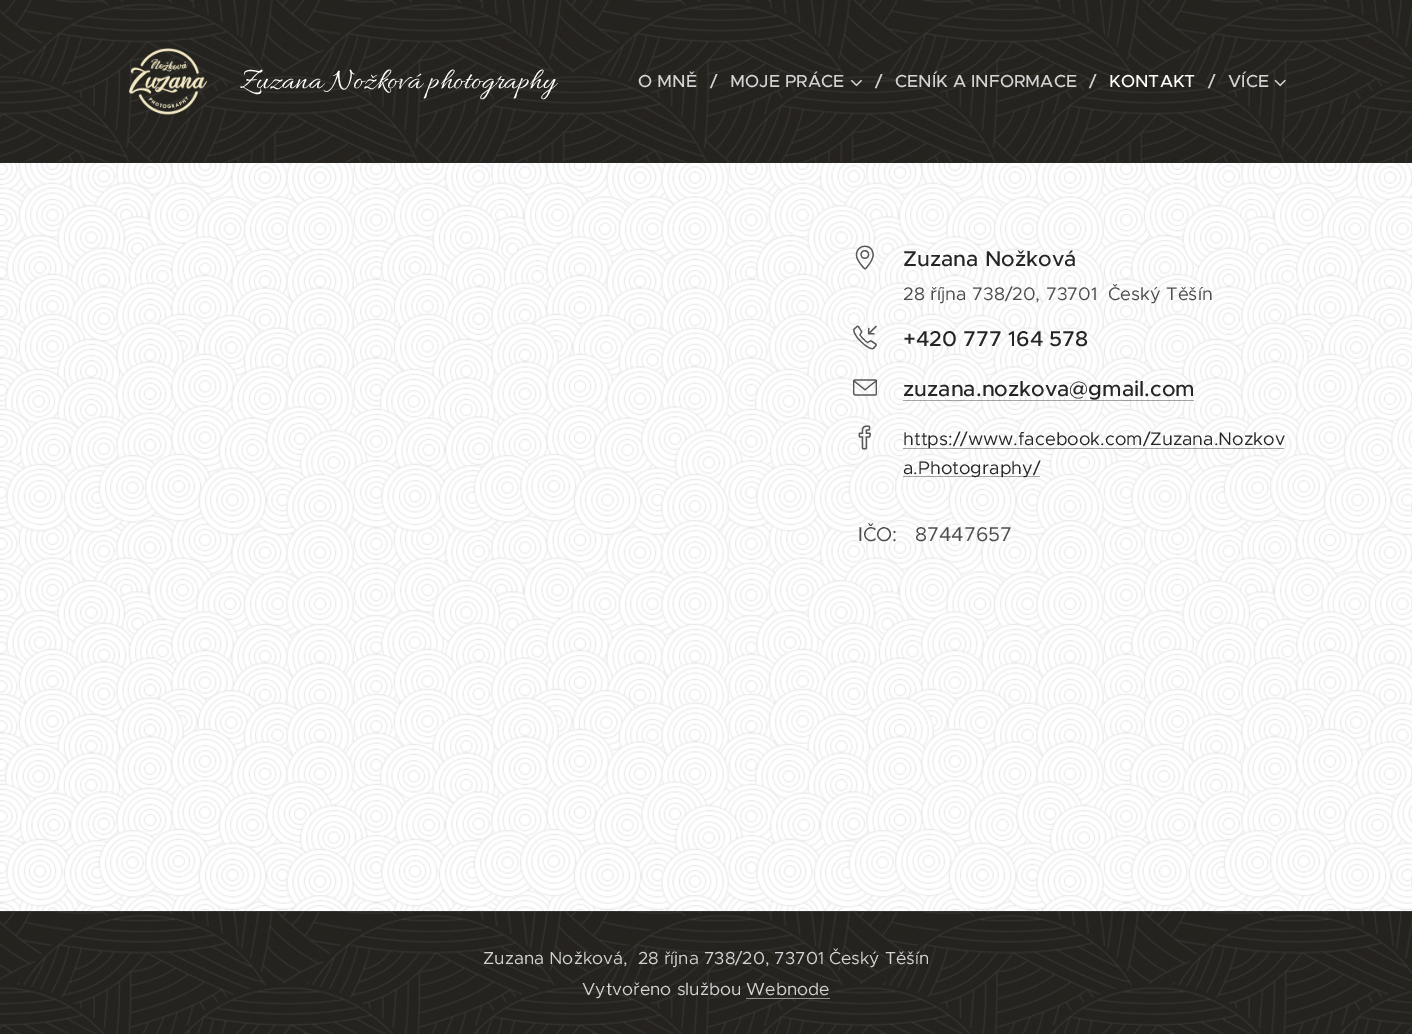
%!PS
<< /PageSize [1412 1034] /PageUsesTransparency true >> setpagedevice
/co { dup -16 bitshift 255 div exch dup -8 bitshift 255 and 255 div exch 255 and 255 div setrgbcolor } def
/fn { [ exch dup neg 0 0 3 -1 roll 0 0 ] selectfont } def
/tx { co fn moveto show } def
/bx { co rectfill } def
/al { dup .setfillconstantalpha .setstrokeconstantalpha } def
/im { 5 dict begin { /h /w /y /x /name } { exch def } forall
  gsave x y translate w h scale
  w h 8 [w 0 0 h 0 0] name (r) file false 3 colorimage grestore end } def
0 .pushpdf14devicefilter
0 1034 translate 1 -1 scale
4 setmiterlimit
0 0 1412 1034 16#272727 bx
(media/1.raw) 0 0 1412 162 im
(media/2.raw) 128 48 80 67 im
(media/3.raw) 850 79 12 8 im
(media/4.raw) 1274 79 12 8 im
(media/10.raw) 0 911 1412 123 im
(media/5.raw) 0 163 1412 749 im
(media/6.raw) 855 245 19 25 im
(media/7.raw) 853 325 24 25 im
(media/8.raw) 853 379 24 17 im
0.35 al
903 400 291 1 16#000000 bx
1 al
(media/9.raw) 858 425 13 25 im
0.35 al
903 448 381 1 16#000000 bx
903 476 137 1 16#000000 bx
1 al
(Zuzana Nožková photography) 240 88 /Allura-Regular 30.6 16#FFFFFF tx
(O MNĚ) 638 87 /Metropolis-Medium 17.5 16#D4D3D3 tx
(/) 710 87 /Metropolis-Medium 17.5 16#D4D3D3 tx
(MOJE PRÁCE) 730 87 /Metropolis-Medium 17.5 16#D4D3D3 tx
(/) 875 87 /Metropolis-Medium 17.5 16#D4D3D3 tx
(CENÍK A INFORMACE) 895 87 /Metropolis-Medium 17.5 16#D4D3D3 tx
(/) 1089 87 /Metropolis-Medium 17.5 16#D4D3D3 tx
(KONTAKT) 1109 87 /Metropolis-Medium 17.5 16#FFFFFF tx
(/) 1208 87 /Metropolis-Medium 17.5 16#D4D3D3 tx
(VÍCE) 1228 87 /Metropolis-Medium 17.5 16#D4D3D3 tx
(Zuzana Nožková) 903 266 /Metropolis-Medium 21.5 16#252525 tx
(28 října 738/20, 73701  Český Těšín) 903 300 /Metropolis-Regular 18.25 16#4B4B4B tx
(+420 777 164 578) 903 346 /Metropolis-Medium 21.5 16#252525 tx
(zuzana.nozkova@gmail.com) 903 396 /Metropolis-Medium 21.5 16#252525 tx
(https://www.facebook.com/Zuzana.Nozkov) 903 445 /Metropolis-Regular 18.25 16#252525 tx
(a.Photography/) 903 474 /Metropolis-Regular 18.25 16#252525 tx
(IČO:   87447657) 858 541 /Metropolis-Regular 20 16#4B4B4B tx
(Zuzana Nožková,  28 října 738/20, 73701 Český Těšín) 483 964 /Metropolis-Regular 17.5 16#D4D3D3 tx
(Vytvořeno službou Webnode) 582 995 /Metropolis-Regular 17.5 16#D4D3D3 tx
0.5 al
746 998 84 1 16#FFFFFF bx
.poppdf14devicefilter showpage
